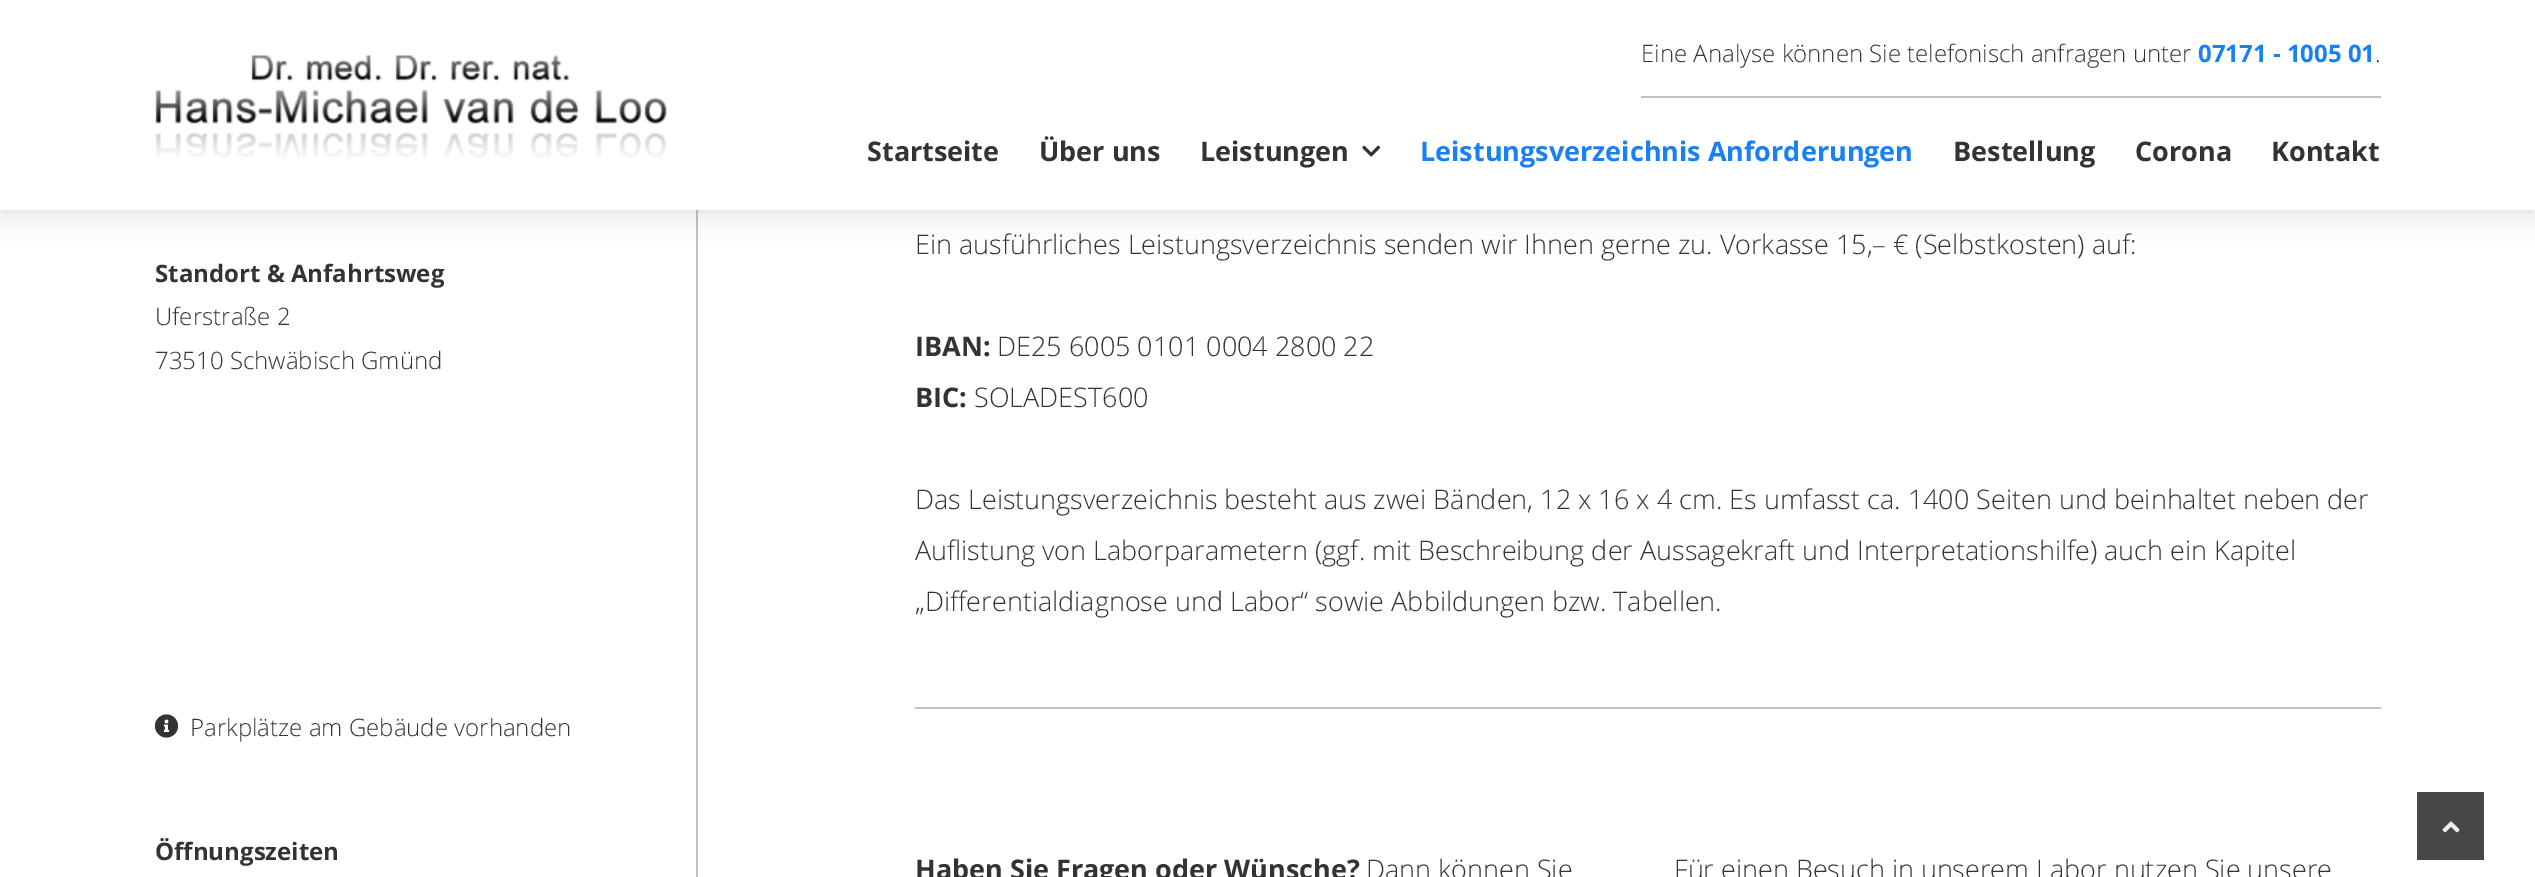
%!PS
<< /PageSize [2535 877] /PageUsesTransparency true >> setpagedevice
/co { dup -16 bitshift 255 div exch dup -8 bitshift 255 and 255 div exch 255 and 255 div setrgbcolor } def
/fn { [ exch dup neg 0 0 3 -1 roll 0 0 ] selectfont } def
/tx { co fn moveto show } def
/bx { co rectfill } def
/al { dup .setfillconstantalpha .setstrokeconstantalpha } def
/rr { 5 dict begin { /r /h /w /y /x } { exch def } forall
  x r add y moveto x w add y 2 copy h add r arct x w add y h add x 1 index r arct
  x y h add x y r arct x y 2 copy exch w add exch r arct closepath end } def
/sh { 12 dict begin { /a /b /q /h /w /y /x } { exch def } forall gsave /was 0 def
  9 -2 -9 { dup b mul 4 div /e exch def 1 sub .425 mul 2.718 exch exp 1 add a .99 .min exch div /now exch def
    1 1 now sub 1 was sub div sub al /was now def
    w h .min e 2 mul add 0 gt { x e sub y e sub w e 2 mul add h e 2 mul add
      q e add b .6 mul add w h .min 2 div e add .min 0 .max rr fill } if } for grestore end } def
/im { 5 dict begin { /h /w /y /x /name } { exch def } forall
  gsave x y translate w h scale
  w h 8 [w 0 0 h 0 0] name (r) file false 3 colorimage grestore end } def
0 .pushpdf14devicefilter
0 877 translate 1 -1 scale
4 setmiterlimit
0 0 2535 877 16#FFFFFF bx
696 210 2 667 16#C1C1C2 bx
16#323334 co
0 0 2535 210 0 15 .2 sh
0 0 2535 210 16#FFFFFF bx
1641 96 740 2 16#C1C1C2 bx
(media/1.raw) 1362 145 19 12 im
(media/2.raw) 155 55 512 104 im
(media/3.raw) 154 714 25 24 im
915 707 1466 2 16#C1C1C2 bx
2417 792 67 68 16#474748 bx
(media/4.raw) 2442 821 18 12 im
(Eine Analyse können Sie telefonisch anfragen unter) 1641 62 /OpenSans-Light 24 16#323334 tx
(07171 - 1005 01) 2198 62 /OpenSans-Bold 24 16#1781F5 tx
(.) 2375 62 /OpenSans-Light 24 16#323334 tx
(Startseite) 867 161 /OpenSans-Bold 27 16#323334 tx
(Über uns) 1039 161 /OpenSans-Bold 27 16#323334 tx
(Leistungen) 1200 161 /OpenSans-Bold 27 16#323334 tx
(Leistungsverzeichnis Anforderungen) 1420 161 /OpenSans-Bold 27 16#1781F5 tx
(Bestellung) 1953 161 /OpenSans-Bold 27 16#323334 tx
(Corona) 2135 161 /OpenSans-Bold 27 16#323334 tx
(Kontakt) 2271 161 /OpenSans-Bold 27 16#323334 tx
(Standort & Anfahrtsweg) 155 282 /OpenSans-Bold 24 16#323334 tx
(Uferstraße 2) 155 325 /OpenSans-Light 24 16#323334 tx
(73510 Schwäbisch Gmünd) 155 369 /OpenSans-Light 24 16#323334 tx
(Parkplätze am Gebäude vorhanden) 190 736 /OpenSans-Light 24 16#323334 tx
(Öffnungszeiten) 155 860 /OpenSans-Bold 24 16#323334 tx
(Ein ausführliches Leistungsverzeichnis senden wir Ihnen gerne zu. Vorkasse 15,– € \(Selbstkosten\) auf:) 915 254 /OpenSans-Light 27 16#323334 tx
(IBAN:) 915 356 /OpenSans-Bold 27 16#323334 tx
(DE25 6005 0101 0004 2800 22) 997 356 /OpenSans-Light 27 16#323334 tx
(BIC:) 915 407 /OpenSans-Bold 27 16#323334 tx
(SOLADEST600) 974 407 /OpenSans-Light 27 16#323334 tx
(Das Leistungsverzeichnis besteht aus zwei Bänden, 12 x 16 x 4 cm. Es umfasst ca. 1400 Seiten und beinhaltet neben der) 915 509 /OpenSans-Light 27 16#323334 tx
(Auflistung von Laborparametern \(ggf. mit Beschreibung der Aussagekraft und Interpretationshilfe\) auch ein Kapitel) 915 560 /OpenSans-Light 27 16#323334 tx
(„Differentialdiagnose und Labor“ sowie Abbildungen bzw. Tabellen.) 915 611 /OpenSans-Light 27 16#323334 tx
(Haben Sie Fragen oder Wünsche?) 915 879 /OpenSans-Bold 27 16#323334 tx
(Dann können Sie) 1366 879 /OpenSans-Light 27 16#323334 tx
(Für einen Besuch in unserem Labor nutzen Sie unsere) 1674 879 /OpenSans-Light 27 16#323334 tx
.poppdf14devicefilter showpage
